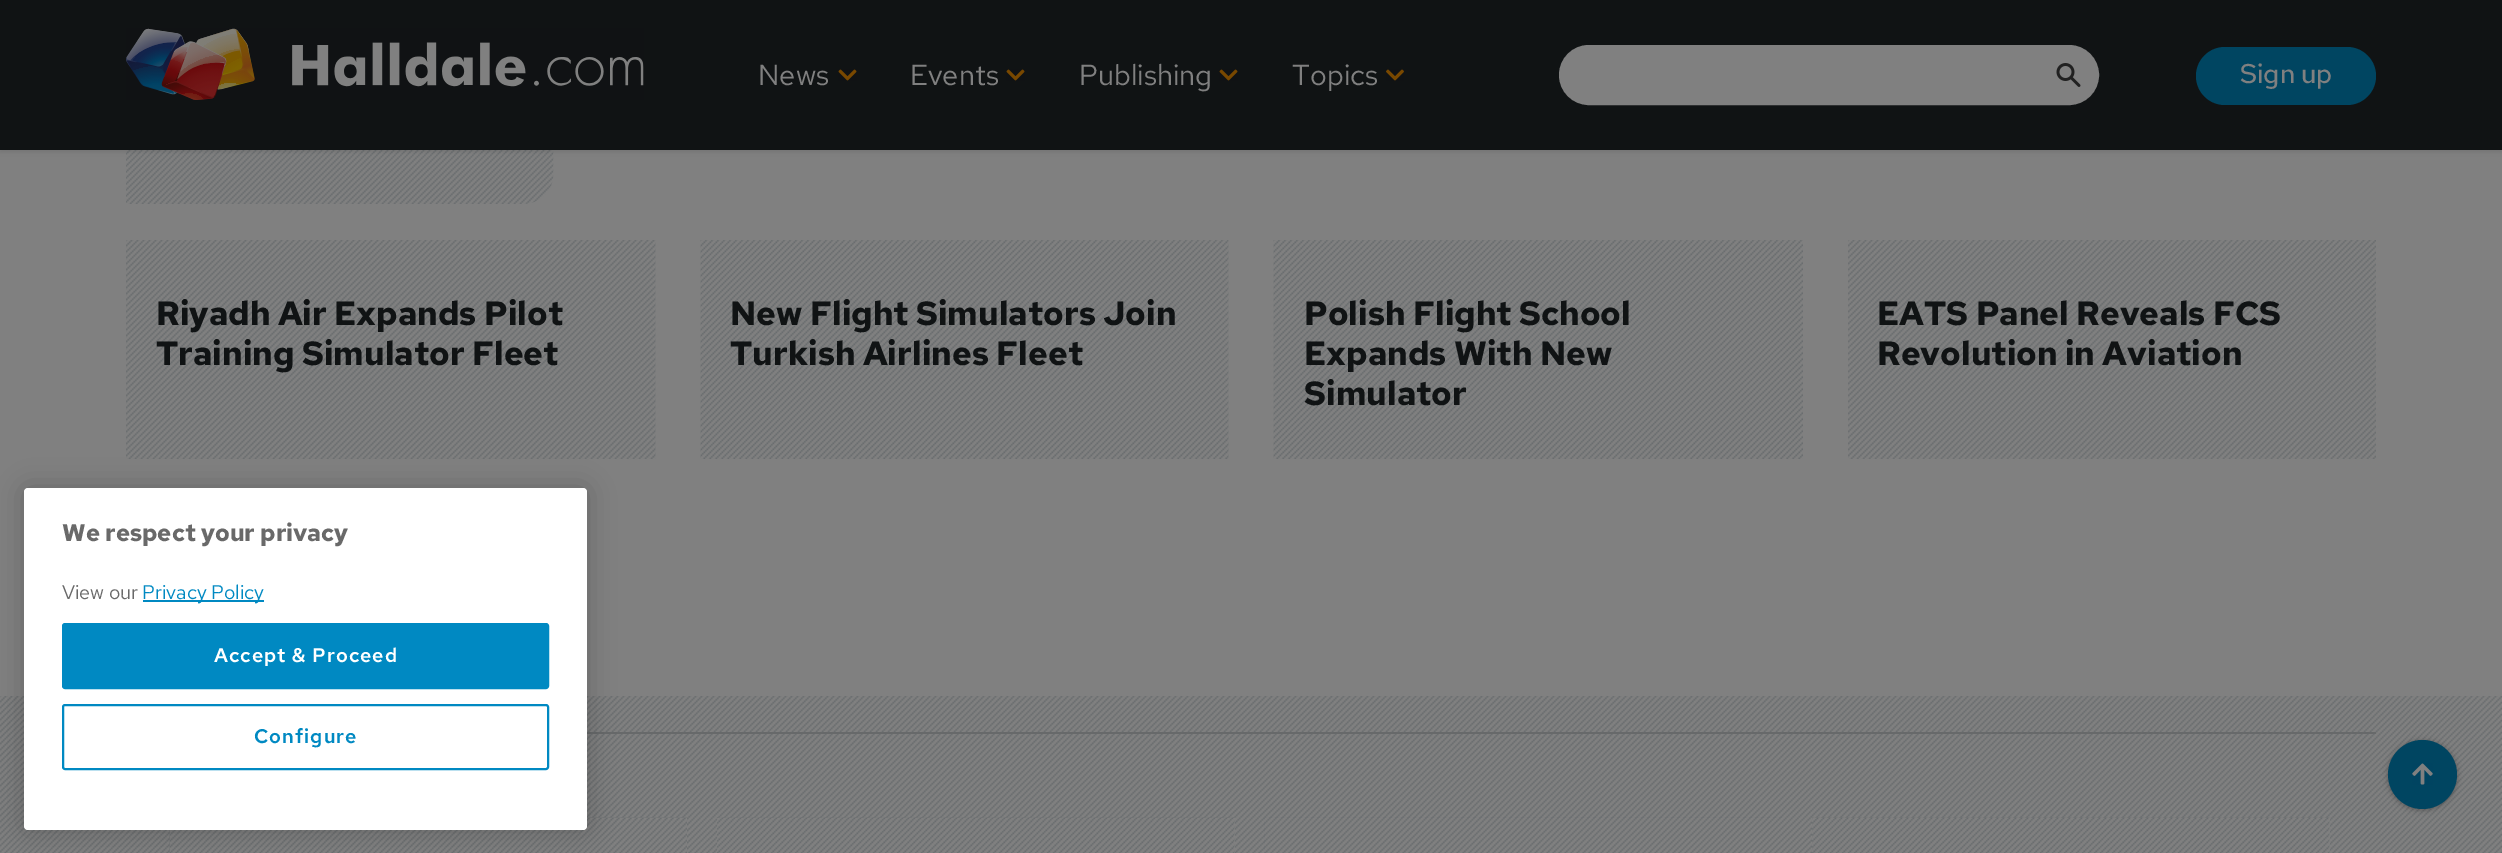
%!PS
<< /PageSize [2502 853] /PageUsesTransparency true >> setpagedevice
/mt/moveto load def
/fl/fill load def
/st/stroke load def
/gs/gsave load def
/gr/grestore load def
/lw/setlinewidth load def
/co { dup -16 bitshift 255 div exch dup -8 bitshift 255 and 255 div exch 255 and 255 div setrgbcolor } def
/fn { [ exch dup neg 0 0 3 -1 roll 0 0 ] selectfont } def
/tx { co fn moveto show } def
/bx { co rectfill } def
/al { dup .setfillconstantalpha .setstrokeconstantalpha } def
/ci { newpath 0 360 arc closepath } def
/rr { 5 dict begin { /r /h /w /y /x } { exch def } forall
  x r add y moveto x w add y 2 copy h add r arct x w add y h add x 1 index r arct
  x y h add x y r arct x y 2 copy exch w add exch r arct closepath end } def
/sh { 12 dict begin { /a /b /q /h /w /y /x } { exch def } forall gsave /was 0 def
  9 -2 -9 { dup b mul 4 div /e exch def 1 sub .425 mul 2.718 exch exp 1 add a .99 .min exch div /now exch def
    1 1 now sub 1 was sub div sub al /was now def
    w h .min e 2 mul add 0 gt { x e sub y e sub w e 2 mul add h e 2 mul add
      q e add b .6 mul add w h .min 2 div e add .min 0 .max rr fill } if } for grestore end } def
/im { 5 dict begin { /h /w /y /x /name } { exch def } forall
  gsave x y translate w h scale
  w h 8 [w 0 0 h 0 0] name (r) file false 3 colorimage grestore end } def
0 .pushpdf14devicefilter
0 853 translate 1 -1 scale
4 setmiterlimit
0 0 2502 853 16#808080 bx
(media/5.raw) 126 150 428 54 im
16#000000 co
0 2 2502 150 0 2 .1 sh
0 0 2502 150 16#101314 bx
(media/1.raw) 126 28 518 72 im
(media/2.raw) 838 69 19 12 im
(media/2.raw) 1006 69 19 12 im
(media/2.raw) 1219 69 19 12 im
(media/3.raw) 1386 69 18 12 im
16#808080 co
1560 46 538 58 29 rr gs fl gr
2 lw
st
(media/4.raw) 2056 63 25 24 im
16#004561 co
2196 47 180 58 29 rr fl
(media/6.raw) 126 240 530 219 im
(media/7.raw) 700 240 529 219 im
(media/8.raw) 1273 240 530 219 im
(media/9.raw) 1848 240 528 219 im
(media/10.raw) 0 696 2502 157 im
587 732 1789 2 16#67696A bx
170 818 517 35 16#808080 bx
(media/11.raw) 169 817 518 36 im
717 818 518 35 16#808080 bx
(media/12.raw) 717 817 518 36 im
1265 818 517 35 16#808080 bx
(media/13.raw) 1264 817 518 36 im
1812 818 518 35 16#808080 bx
(media/14.raw) 1812 817 518 36 im
16#000000 co
2388 741 69 69 34.5 3 .3 sh
16#004561 co
2422.5 774.5 34.5 ci fl
(media/15.raw) 2412 763 21 22 im
16#000000 co
24 488 563 342 4 13.5 .2 sh
16#FFFFFF co
24 488 563 342 4 rr fl
143 600 121 2 16#0089C2 bx
63 624 485 64 2 rr gs fl gr
st
63 705 485 64 2 rr st
(News) 758 85 /RedHatText-Regular 29 16#808080 tx
(Events) 910 85 /RedHatText-Regular 29 16#808080 tx
(Publishing) 1079 85 /RedHatText-Regular 29 16#808080 tx
(Topics) 1292 85 /RedHatText-Regular 29 16#808080 tx
(Sign up) 2240 83 /RedHatText-Medium 27 16#808080 tx
(Riyadh Air Expands Pilot) 156 325 /RedHatText-Bold 33.5 16#101314 tx
(Training Simulator Fleet) 156 365 /RedHatText-Bold 33.5 16#101314 tx
(New Flight Simulators Join) 730 325 /RedHatText-Bold 33.5 16#101314 tx
(Turkish Airlines Fleet) 730 365 /RedHatText-Bold 33.5 16#101314 tx
(Polish Flight School) 1304 325 /RedHatText-Bold 33.5 16#101314 tx
(Expands With New) 1304 365 /RedHatText-Bold 33.5 16#101314 tx
(Simulator) 1304 405 /RedHatText-Bold 33.5 16#101314 tx
(EATS Panel Reveals FCS) 1877 325 /RedHatText-Bold 33.5 16#101314 tx
(Revolution in Aviation) 1877 365 /RedHatText-Bold 33.5 16#101314 tx
(We respect your privacy) 62 541 /RedHatText-Bold 24 16#696969 tx
(View our) 62 599 /RedHatText-Regular 19.75 16#696969 tx
(Privacy Policy) 142 599 /RedHatText-Regular 19.75 16#0089C2 tx
/RedHatText-SemiBold 19.75 fn
16#FFFFFF co
214 662 mt 1 0 (Accept & Proceed) ashow
16#0089C2 co
254 743 mt 1 0 (Configure) ashow
.poppdf14devicefilter showpage
